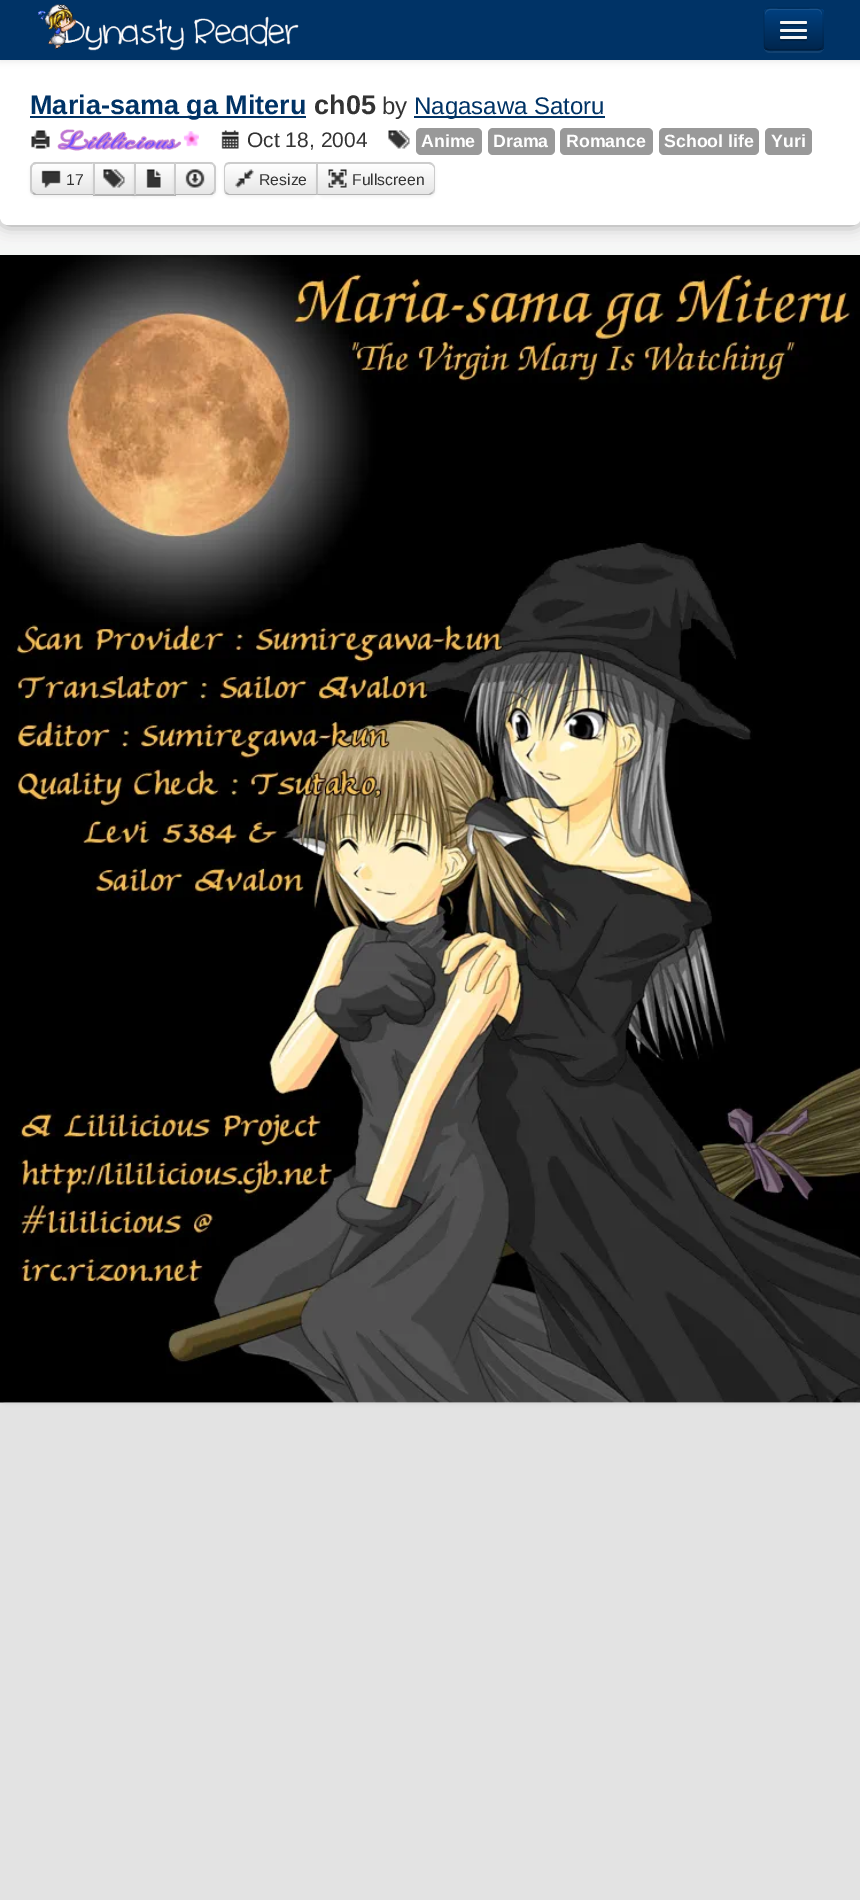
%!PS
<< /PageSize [860 1900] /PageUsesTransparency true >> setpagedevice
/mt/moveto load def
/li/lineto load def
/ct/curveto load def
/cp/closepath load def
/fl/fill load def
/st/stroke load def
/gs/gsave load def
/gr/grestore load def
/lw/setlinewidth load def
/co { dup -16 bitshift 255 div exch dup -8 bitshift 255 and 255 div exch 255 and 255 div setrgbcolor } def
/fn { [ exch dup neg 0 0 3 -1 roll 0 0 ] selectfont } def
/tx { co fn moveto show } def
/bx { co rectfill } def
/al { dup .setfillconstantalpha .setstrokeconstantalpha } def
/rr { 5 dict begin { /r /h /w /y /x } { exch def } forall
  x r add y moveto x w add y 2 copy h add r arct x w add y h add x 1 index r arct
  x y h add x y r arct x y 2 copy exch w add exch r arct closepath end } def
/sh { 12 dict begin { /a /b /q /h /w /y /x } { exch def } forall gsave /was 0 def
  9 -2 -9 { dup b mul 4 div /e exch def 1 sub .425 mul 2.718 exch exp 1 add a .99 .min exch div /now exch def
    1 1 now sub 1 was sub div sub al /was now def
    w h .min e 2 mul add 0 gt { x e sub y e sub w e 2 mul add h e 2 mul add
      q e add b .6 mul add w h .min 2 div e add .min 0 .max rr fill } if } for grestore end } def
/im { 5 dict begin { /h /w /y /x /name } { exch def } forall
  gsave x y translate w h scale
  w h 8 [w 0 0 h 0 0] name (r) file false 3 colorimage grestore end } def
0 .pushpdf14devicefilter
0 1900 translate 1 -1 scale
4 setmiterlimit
0 0 860 1900 16#E3E3E3 bx
(media/1.raw) 0 217 860 38 im
16#999999 co
0 0 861 225 8 7.5 1 sh
16#FFFFFF co
0 0 mt 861 0 li 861 217 li 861 221.5 857.5 225 853 225 ct 8 225 li 3.5 225 0 221.5 0 217 ct cp fl
16#000000 co
0 2 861 60 0 3 .07 sh
0 0 860 60 16#003366 bx
(media/2.raw) 38 4 261 47 im
16#134271 co
764 47 mt 764 51 767 53 770 53 ct 818 53 li 821 53 824 50 824 47 ct 824 15 li 823 12 li 823 46 li 822 48 li 822 50 820 51 819 51 ct 778 51 li 773 51 766 53 764 47 ct cp fl
16#00366B co
764 8 60 43 6 rr fl
gs
764 8 60 43 6 rr clip newpath
gs 764 9 mt 824 9 li 824 50 li 764 50 li cp clip newpath
<< /ShadingType 2 /ColorSpace /DeviceRGB /Coords [794 9 794 50] /Extend [true true] /Function << /FunctionType 2 /Domain [0 1] /C0 [0 .251 .502] /C1 [0 .149 .302] /N 1 >> >> shfill gr
gr
16#1A538C co
770 10 mt 818 10 li 820 10 822 13 822 15 ct 822 7 815 9 809 9 ct 778 9 li 772 9 765 7 765 15 ct 765 13 767 10 770 10 ct cp fl
0.25 al
16#000000 co
1.5 lw
821 48.5 mt 820 49.5 819 50 817.5 50 ct 769.5 50 li 768 50 767 49.5 766 48.5 ct st
0.1 al
766 48.5 mt 765 47.5 764 46.5 764 45 ct 764 13.5 li 764 12 765 11 766 10 ct 767 9 768 8 769.5 8 ct 817.5 8 li 819 8 820 9 821 10 ct 822 11 823 12 823 13.5 ct 823 45 li 823 46.5 822 47.5 821 48.5 ct st
1 al
16#002951 co
780.5 23.5 mt 780 25 li 780.5 27 785 26 785.5 26 ct 801.5 26 li 802 26 806.5 27 807 25 ct 806.5 23.5 li 805.5 24 li 781.5 24 li cp fl
16#F5F5F5 co
780 21 27 3 1.5 rr fl
16#00254A co
780 30.5 mt 778.5 34 785.5 33 785.5 33 ct 801.5 33 li 801.5 33 808.5 34 807 30.5 ct 806.5 31 806 31.5 805.5 31.5 ct 781.5 31.5 li 781 31.5 780.5 31 780 30.5 ct cp fl
16#F5F5F5 co
780 29 27 3 1.5 rr fl
16#002143 co
780.5 38.5 mt 780 40 li 780.5 42 785 41 785.5 41 ct 801.5 41 li 802 41 806.5 42 807 40 ct 806.5 38.5 li 805.5 39 li 781.5 39 li cp fl
16#F5F5F5 co
780 36 27 3 1.5 rr fl
30 116 276 2 16#003366 bx
414 116 191 2 16#003366 bx
(media/3.raw) 31 130 19 19 im
(media/4.raw) 57 129 142 22 im
(media/5.raw) 221 130 18 19 im
(media/6.raw) 388 130 22 19 im
16#999999 co
416 128 66 27 5 rr fl
488 128 67 27 5 rr fl
560 128 93 27 5 rr fl
659 128 100 27 5 rr fl
765 128 47 27 5 rr fl
16#000000 co
30 164 65 33 6 1.5 .05 sh
16#F5F5F5 co
36 162 mt 95 162 li 95 195 li 36 195 li 32.5 195 30 192.5 30 189 ct 30 168 li 30 164.5 32.5 162 36 162 ct cp fl
gs
36 162 mt 95 162 li 95 195 li 36 195 li 32.5 195 30 192.5 30 189 ct 30 168 li 30 164.5 32.5 162 36 162 ct cp clip newpath
gs 30 164 mt 93 164 li 93 194 li 30 194 li cp clip newpath
<< /ShadingType 2 /ColorSpace /DeviceRGB /Coords [62 164 62 194] /Extend [true true] /Function << /FunctionType 2 /Domain [0 1] /C0 [1 1 1] /C1 [.902 .902 .902] /N 1 >> >> shfill gr
gr
16#CCCCCC co
36 162 mt 34 162 33 163 32 164 ct 33 165 li 36 164 li 92 164 li 94 162 li cp fl
16#B3B3B3 co
36 195 mt 94 195 li 94 194 li 93 194 li 36 194 li 33 192 li 32 193 li 33 194 34 195 36 195 ct cp fl
16#CCCCCC co
30 168 mt 30 189 li 30 190.5 31 192 32 193 ct 33 192 li 32.5 191 32 190 32 189 ct 32 168 li 32 167 32.5 166 33 165 ct 32 164 li 31 165 30 166.5 30 168 ct cp fl
(media/7.raw) 41 170 20 18 im
16#000000 co
93 164 42 33 0 1.5 .05 sh
gs 95 164 mt 134 164 li 134 194 li 95 194 li cp clip newpath
<< /ShadingType 2 /ColorSpace /DeviceRGB /Coords [114 164 114 194] /Extend [true true] /Function << /FunctionType 2 /Domain [0 1] /C0 [1 1 1] /C1 [.902 .902 .902] /N 1 >> >> shfill gr
93 162 42 2 16#CCCCCC bx
93 194 42 2 16#B3B3B3 bx
93 162 2 33 16#CCCCCC bx
(media/8.raw) 103 169 22 19 im
16#000000 co
134 164 42 33 0 1.5 .05 sh
gs 136 164 mt 174 164 li 174 194 li 136 194 li cp clip newpath
<< /ShadingType 2 /ColorSpace /DeviceRGB /Coords [155 164 155 194] /Extend [true true] /Function << /FunctionType 2 /Domain [0 1] /C0 [1 1 1] /C1 [.902 .902 .902] /N 1 >> >> shfill gr
134 162 42 2 16#CCCCCC bx
134 194 42 2 16#B3B3B3 bx
134 162 2 33 16#CCCCCC bx
(media/9.raw) 146 169 15 20 im
16#000000 co
174 164 42 33 6 1.5 .05 sh
16#F5F5F5 co
174 162 mt 210 162 li 213.5 162 216 164.5 216 168 ct 216 189 li 216 192.5 213.5 195 210 195 ct 174 195 li cp fl
gs
174 162 mt 210 162 li 213.5 162 216 164.5 216 168 ct 216 189 li 216 192.5 213.5 195 210 195 ct 174 195 li cp clip newpath
gs 175 164 mt 216 164 li 216 194 li 175 194 li cp clip newpath
<< /ShadingType 2 /ColorSpace /DeviceRGB /Coords [195 164 195 194] /Extend [true true] /Function << /FunctionType 2 /Domain [0 1] /C0 [1 1 1] /C1 [.902 .902 .902] /N 1 >> >> shfill gr
gr
0.2 al
16#FFFFFF co
176 165 mt 210 165 li 212 165 214 167 214 170 ct 214 190 li 214 191 214 192 213.5 192.5 ct 214.5 192 215 190.5 215 189 ct 215 169 li 215 166 213 164 210 164 ct 176 164 li cp fl
1 al
16#CCCCCC co
174 162 mt 176 164 li 210 164 li 211 164 212 164 213 165 ct 214 164 li 213 163 212 162 210 162 ct cp fl
216 189 mt 216 168 li 216 166.5 215 165 214 164 ct 213 165 li 213.5 166 214 167 214 168 ct 214 189 li 214 190 213.5 191 213 192 ct 214 193 li 215 192 216 190.5 216 189 ct cp fl
16#B3B3B3 co
210 195 mt 212 195 213 194 214 193 ct 213 192 li 212 193 211 194 210 194 ct 176 194 li 176 193 li 174 195 li cp fl
16#CCCCCC co
174 162 mt 174 195 li 176 193 li 176 164 li cp fl
(media/10.raw) 185 169 20 20 im
16#000000 co
224 164 94 33 6 1.5 .05 sh
gs
230 162 mt 318 162 li 318 195 li 230 195 li 226.5 195 224 192.5 224 189 ct 224 168 li 224 164.5 226.5 162 230 162 ct cp clip newpath
gs 224 164 mt 317 164 li 317 194 li 224 194 li cp clip newpath
<< /ShadingType 2 /ColorSpace /DeviceRGB /Coords [271 164 271 194] /Extend [true true] /Function << /FunctionType 2 /Domain [0 1] /C0 [1 1 1] /C1 [.902 .902 .902] /N 1 >> >> shfill gr
gr
0.2 al
16#FFFFFF co
230 165 mt 316 165 li 316 194 li 317 194 li 317 164 li 230 164 li 227 164 225 166 225 169 ct 225 170 li 225 167 227 165 230 165 ct cp fl
1 al
16#CCCCCC co
230 162 mt 228 162 226 163 225 164 ct 227 165 li 227 164 229 164 230 164 ct 316 164 li 318 162 li cp fl
318 162 mt 316 164 li 316 193 li 318 195 li cp fl
16#B3B3B3 co
318 195 mt 316 193 li 316 194 li 229 194 li 226 192 li 225 193 li 226 194 228 195 230 195 ct cp fl
16#CCCCCC co
225.5 164 mt 224.5 165 224 166.5 224 168 ct 224 189 li 224 190.5 224.5 192 225.5 193 ct 226.5 192 li 225.5 191 225 190 225 189 ct 225 168 li 225 167 225.5 166 226.5 165 ct cp fl
(media/11.raw) 235 169 19 19 im
16#000000 co
317 164 118 33 6 1.5 .05 sh
16#F5F5F5 co
317 162 mt 429 162 li 432.5 162 435 164.5 435 168 ct 435 189 li 435 192.5 432.5 195 429 195 ct 317 195 li cp fl
gs
317 162 mt 429 162 li 432.5 162 435 164.5 435 168 ct 435 189 li 435 192.5 432.5 195 429 195 ct 317 195 li cp clip newpath
gs 317 164 mt 435 164 li 435 194 li 317 194 li cp clip newpath
<< /ShadingType 2 /ColorSpace /DeviceRGB /Coords [376 164 376 194] /Extend [true true] /Function << /FunctionType 2 /Domain [0 1] /C0 [1 1 1] /C1 [.902 .902 .902] /N 1 >> >> shfill gr
gr
16#CCCCCC co
316 162 mt 318 164 li 429 164 li 432 165 li 433 164 li 432 163 430 162 429 162 ct cp fl
435 189 mt 435 168 li 435 166.5 434 165 433 164 ct 432 165 li 433 166 434 167 434 168 ct 434 189 li 434 190 433 191 432 192 ct 433 193 li 434 192 435 190.5 435 189 ct cp fl
16#B3B3B3 co
316 195 mt 430 195 li 433 193 li 432 192 li 429 194 li 318 194 li cp fl
16#CCCCCC co
318 164 mt 318.5 164 li 316.5 162 li 316.5 195 li 318 193.5 li cp fl
(media/12.raw) 328 169 19 20 im
16#000000 co
0 257 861 1147 6 2 .06 sh
16#FFFFFF co
0 255 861 1148 6 rr fl
(media/13.raw) 0 255 860 1148 im
(Maria-sama ga Miteru) 30 114 /LiberationSans-Bold 27 16#003366 tx
(ch05) 314 114 /LiberationSans-Bold 27 16#333333 tx
(by) 382 114 /LiberationSans-Regular 24 16#333333 tx
(Nagasawa Satoru) 414 114 /LiberationSans-Regular 24 16#003366 tx
(Oct 18, 2004) 247 147 /LiberationSans-Regular 21 16#333333 tx
(Anime) 421 147 /LiberationSans-Bold 17.75 16#FFFFFF tx
(Drama) 493 147 /LiberationSans-Bold 17.75 16#FFFFFF tx
(Romance) 566 147 /LiberationSans-Bold 17.75 16#FFFFFF tx
(School life) 664 147 /LiberationSans-Bold 17.75 16#FFFFFF tx
(Yuri) 771 147 /LiberationSans-Bold 17.75 16#FFFFFF tx
(17) 66 185 /LiberationSans-Regular 15.75 16#333333 tx
(Resize) 259 185 /LiberationSans-Regular 15.75 16#333333 tx
(Fullscreen) 352 185 /LiberationSans-Regular 15.75 16#333333 tx
.poppdf14devicefilter showpage
